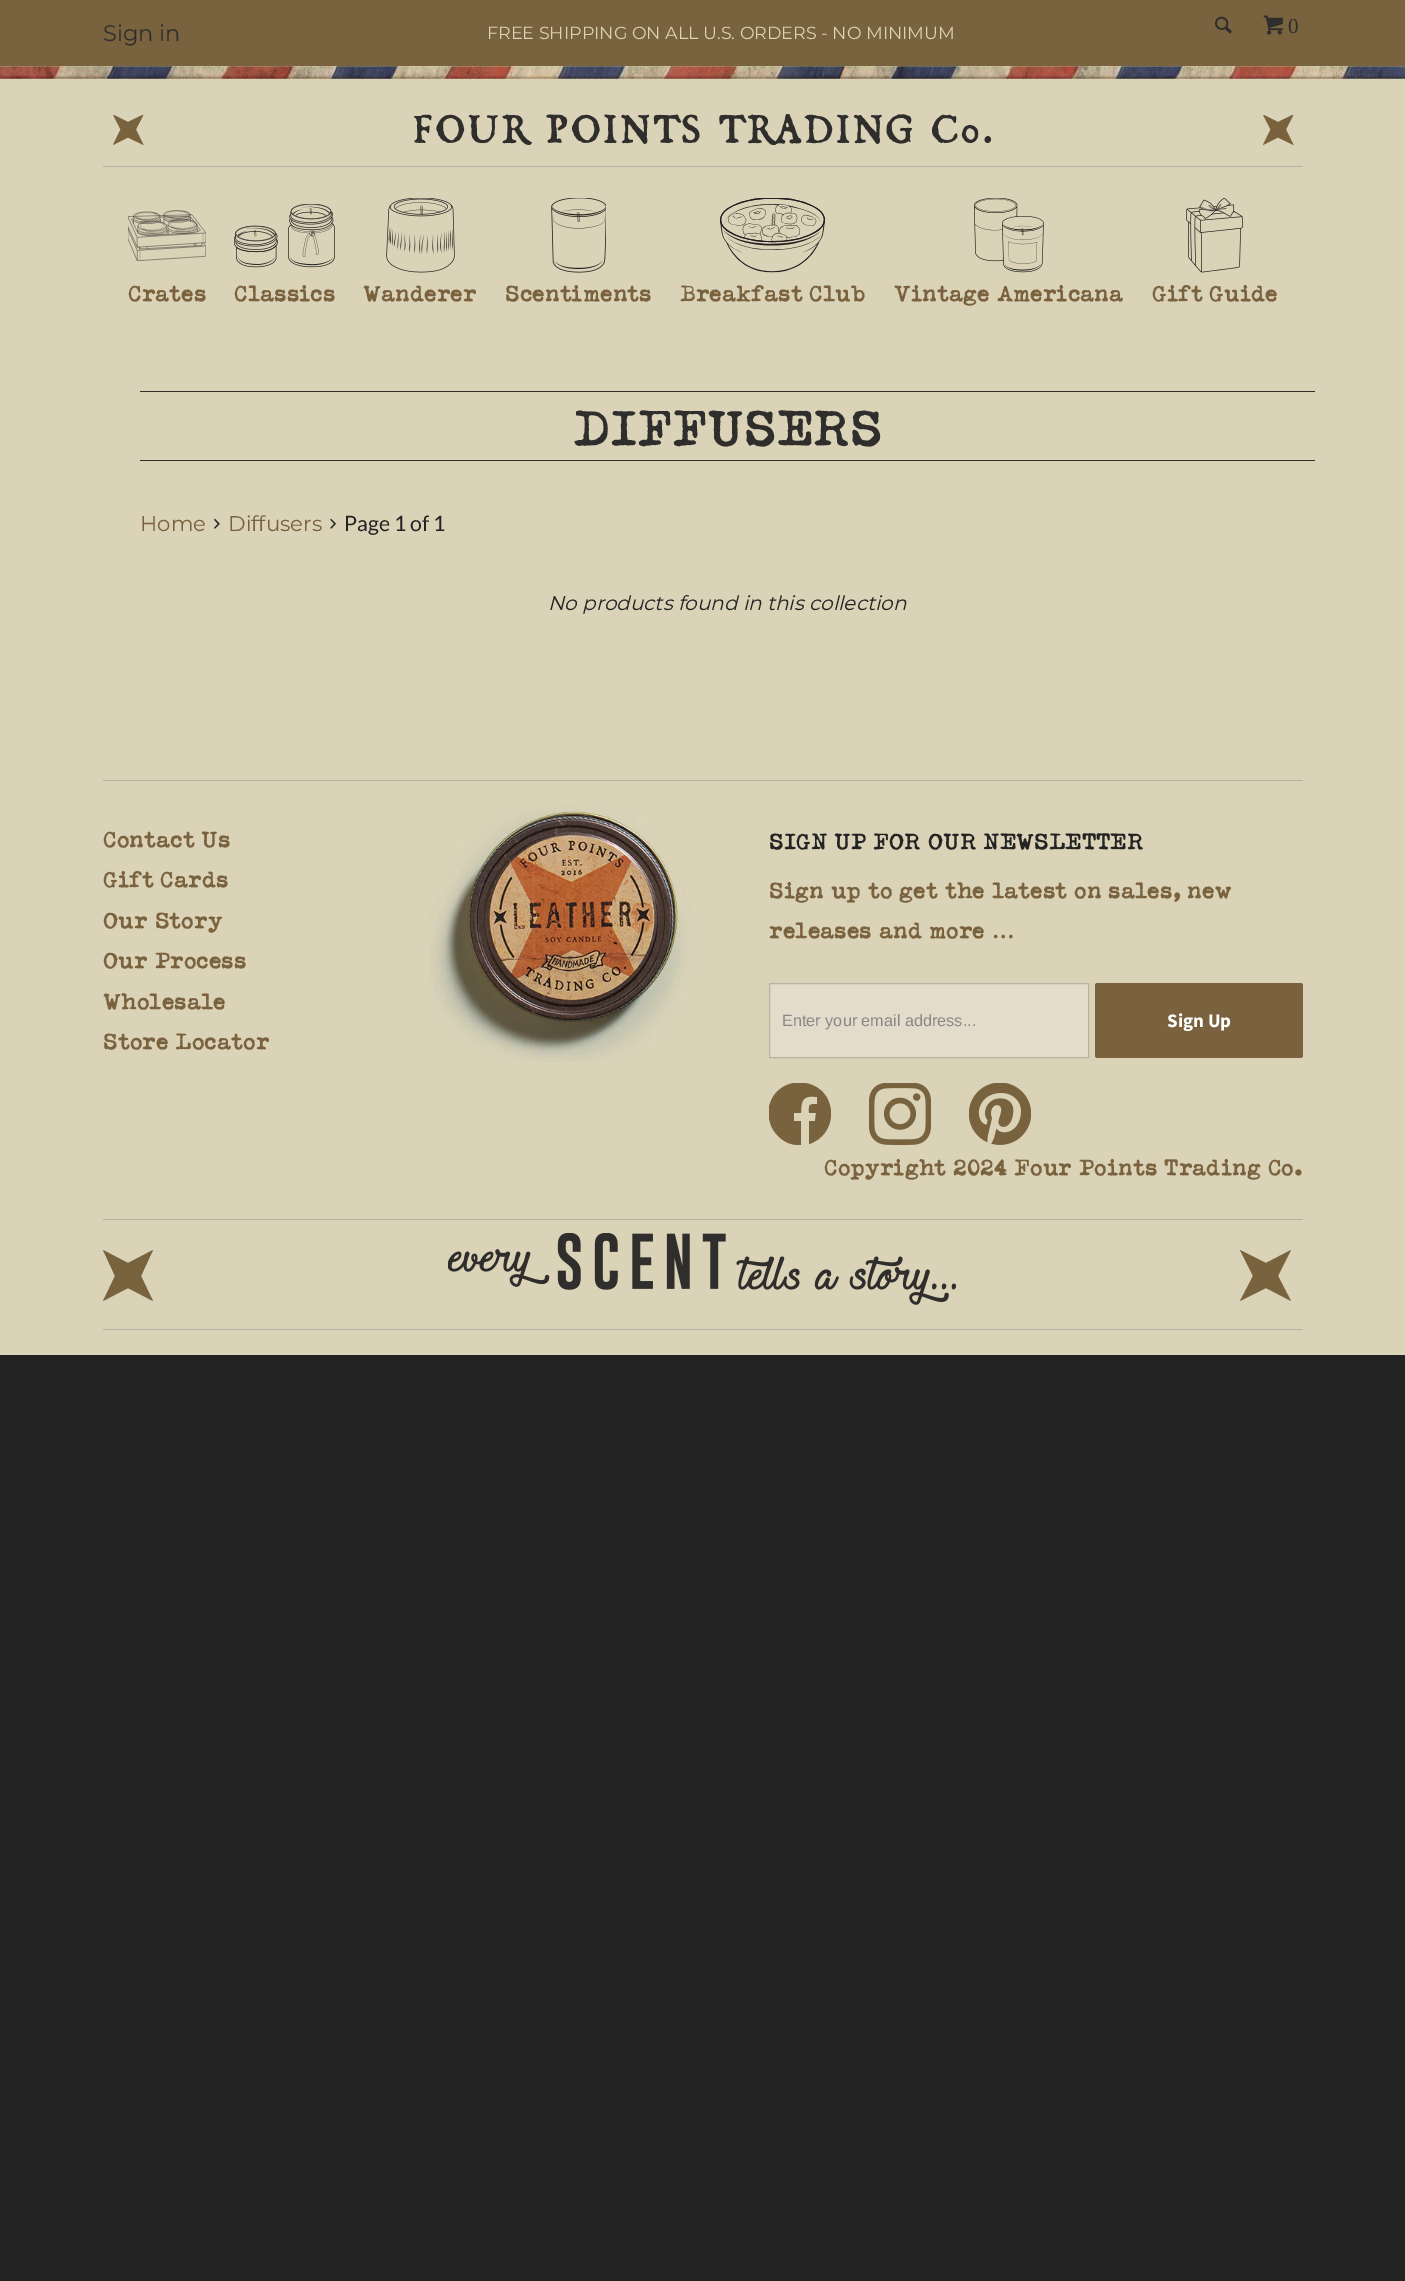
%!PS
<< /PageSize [1405 2281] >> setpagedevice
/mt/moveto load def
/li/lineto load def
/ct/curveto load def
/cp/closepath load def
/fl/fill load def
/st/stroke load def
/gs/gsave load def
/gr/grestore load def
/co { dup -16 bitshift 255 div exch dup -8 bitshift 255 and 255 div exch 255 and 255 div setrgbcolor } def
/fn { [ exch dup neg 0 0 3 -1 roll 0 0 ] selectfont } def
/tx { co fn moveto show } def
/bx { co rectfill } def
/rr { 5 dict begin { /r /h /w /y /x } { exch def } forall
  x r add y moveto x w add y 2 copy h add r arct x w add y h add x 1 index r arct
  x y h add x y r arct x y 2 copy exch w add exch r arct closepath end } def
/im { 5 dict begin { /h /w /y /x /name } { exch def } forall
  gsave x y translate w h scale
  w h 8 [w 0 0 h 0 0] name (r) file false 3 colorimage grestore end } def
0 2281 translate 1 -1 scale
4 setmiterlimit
0 0 1405 2281 16#232323 bx
0 66 1405 1289 16#DAD3B7 bx
0 0 1405 66 16#79633E bx
(media/1.raw) 1215 16 17 18 im
(media/2.raw) 1263 15 20 20 im
(media/3.raw) 0 66 1405 13 im
103 166 1200 1 16#B6B3A5 bx
gs
113 115 31 30 rectclip
16#79633E co
136 129.5 mt 143.5 145 li 128 137.5 li 113 145 li 120.5 129.5 li 113 114.5 li 128 122 li 143.5 114.5 li cp fl
gr
(media/4.raw) 414 114 577 31 im
gs
1263 115 31 30 rectclip
16#79633E co
1286 129.5 mt 1293.5 145 li 1278 137.5 li 1263 145 li 1270.5 129.5 li 1263 114.5 li 1278 122 li 1293.5 114.5 li cp fl
gr
(media/5.raw) 128 210 78 51 im
(media/6.raw) 234 204 101 64 im
(media/7.raw) 386 198 69 75 im
(media/8.raw) 551 198 55 75 im
(media/9.raw) 720 198 105 75 im
(media/10.raw) 974 198 70 75 im
(media/11.raw) 1186 198 57 75 im
140 391 1175 1 16#2F2E2C bx
140 460 1175 1 16#2F2E2C bx
(media/12.raw) 214 518 6 11 im
(media/13.raw) 330 518 6 11 im
103 780 1200 1 16#B6B3A5 bx
(media/14.raw) 430 806 266 256 im
16#E3DCCA co
769.5 983.5 mt 1088.5 983.5 li 1088.5 1057.5 li 769.5 1057.5 li cp gs fl gr
16#B6B3A5 co
st
16#7A623E co
1095 983 208 75 2.5 rr fl
gs
769 1083 62 62 rectclip
16#79633E co
831 1114 mt 831 1076 777 1071 769 1107 ct 768 1116 769 1124 774 1131 ct 780 1140 790 1146 801 1145 ct 801 1121 li 794 1121 li 794 1113 li 801 1113 li 801 1100 803 1095 817 1097 ct 817 1104 li 808 1104 809 1105 809 1113 ct 816 1113 li 815 1121 li 809 1121 li 809 1144 li 822 1140 831 1128 831 1114 ct cp fl
gr
(media/15.raw) 869 1083 62 62 im
(media/16.raw) 969 1083 62 62 im
103 1219 1200 1 16#B6B3A5 bx
103 1329 1200 1 16#B6B3A5 bx
16#79633E co
141 1276 mt 153 1301 li 128 1288 li 103 1301 li 115 1276 li 103 1250 li 128 1263 li 153 1250 li cp fl
(media/17.raw) 448 1233 508 72 im
1278 1276 mt 1291 1301 li 1266 1288 li 1240 1301 li 1253 1276 li 1240 1250 li 1266 1263 li 1291 1250 li cp fl
(Sign in) 103 41 /Montserrat-Regular 22.5 16#2F2E2C tx
(FREE SHIPPING ON ALL U.S. ORDERS - NO MINIMUM) 487 39 /Montserrat-Regular 17.5 16#DAD3B7 tx
(0) 1288 33 /LiberationSerif-Regular 21.25 16#2F2E2C tx
(Crates) 128 301 /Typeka-Bold 22.5 16#7A623E tx
(Classics) 234 301 /Typeka-Bold 22.5 16#7A623E tx
(Wanderer) 363 301 /Typeka-Bold 22.5 16#7A623E tx
(Scentiments) 505 301 /Typeka-Bold 22.5 16#7A623E tx
(Breakfast Club) 680 301 /Typeka-Bold 22.5 16#7A623E tx
(Vintage Americana) 894 301 /Typeka-Bold 22.5 16#7A623E tx
(Gift Guide) 1152 301 /Typeka-Bold 22.5 16#7A623E tx
(DIFFUSERS) 573 445 /Typeka-Bold 50 16#2F2E2C tx
(Home) 140 531 /Montserrat-Regular 21.25 16#7A623E tx
(Diffusers) 228 531 /Montserrat-Regular 21.25 16#7A623E tx
(Page 1 of 1) 344 531 /Lato-Regular 21.25 16#232323 tx
(No products found in this collection) 548 610 /Montserrat-Italic 20 16#232323 tx
(Contact Us) 103 847 /Typeka-Bold 22.5 16#7A623E tx
(Gift Cards) 103 887 /Typeka-Bold 22.5 16#7A623E tx
(Our Story) 103 928 /Typeka-Bold 22.5 16#7A623E tx
(Our Process) 103 968 /Typeka-Bold 22.5 16#7A623E tx
(Wholesale) 103 1009 /Typeka-Bold 22.5 16#7A623E tx
(Store Locator) 103 1049 /Typeka-Bold 22.5 16#7A623E tx
(SIGN UP FOR OUR NEWSLETTER) 769 849 /Typeka-Bold 22.5 16#232323 tx
(Sign up to get the latest on sales, new) 769 898 /Typeka-Bold 22.5 16#7A623E tx
(releases and more) 769 938 /Typeka-Bold 22.5 16#7A623E tx
(…) 992 938 /LiberationSerif-Bold 22.5 16#7A623E tx
(Enter your email address...) 782 1026 /LiberationSans-Regular 16.25 16#888888 tx
(Sign Up) 1167 1027 /SourceSansPro-Bold 19 16#FFFFFF tx
(Copyright 2024 Four Points Trading Co.) 824 1175 /Typeka-Bold 22.5 16#7A623E tx
showpage
